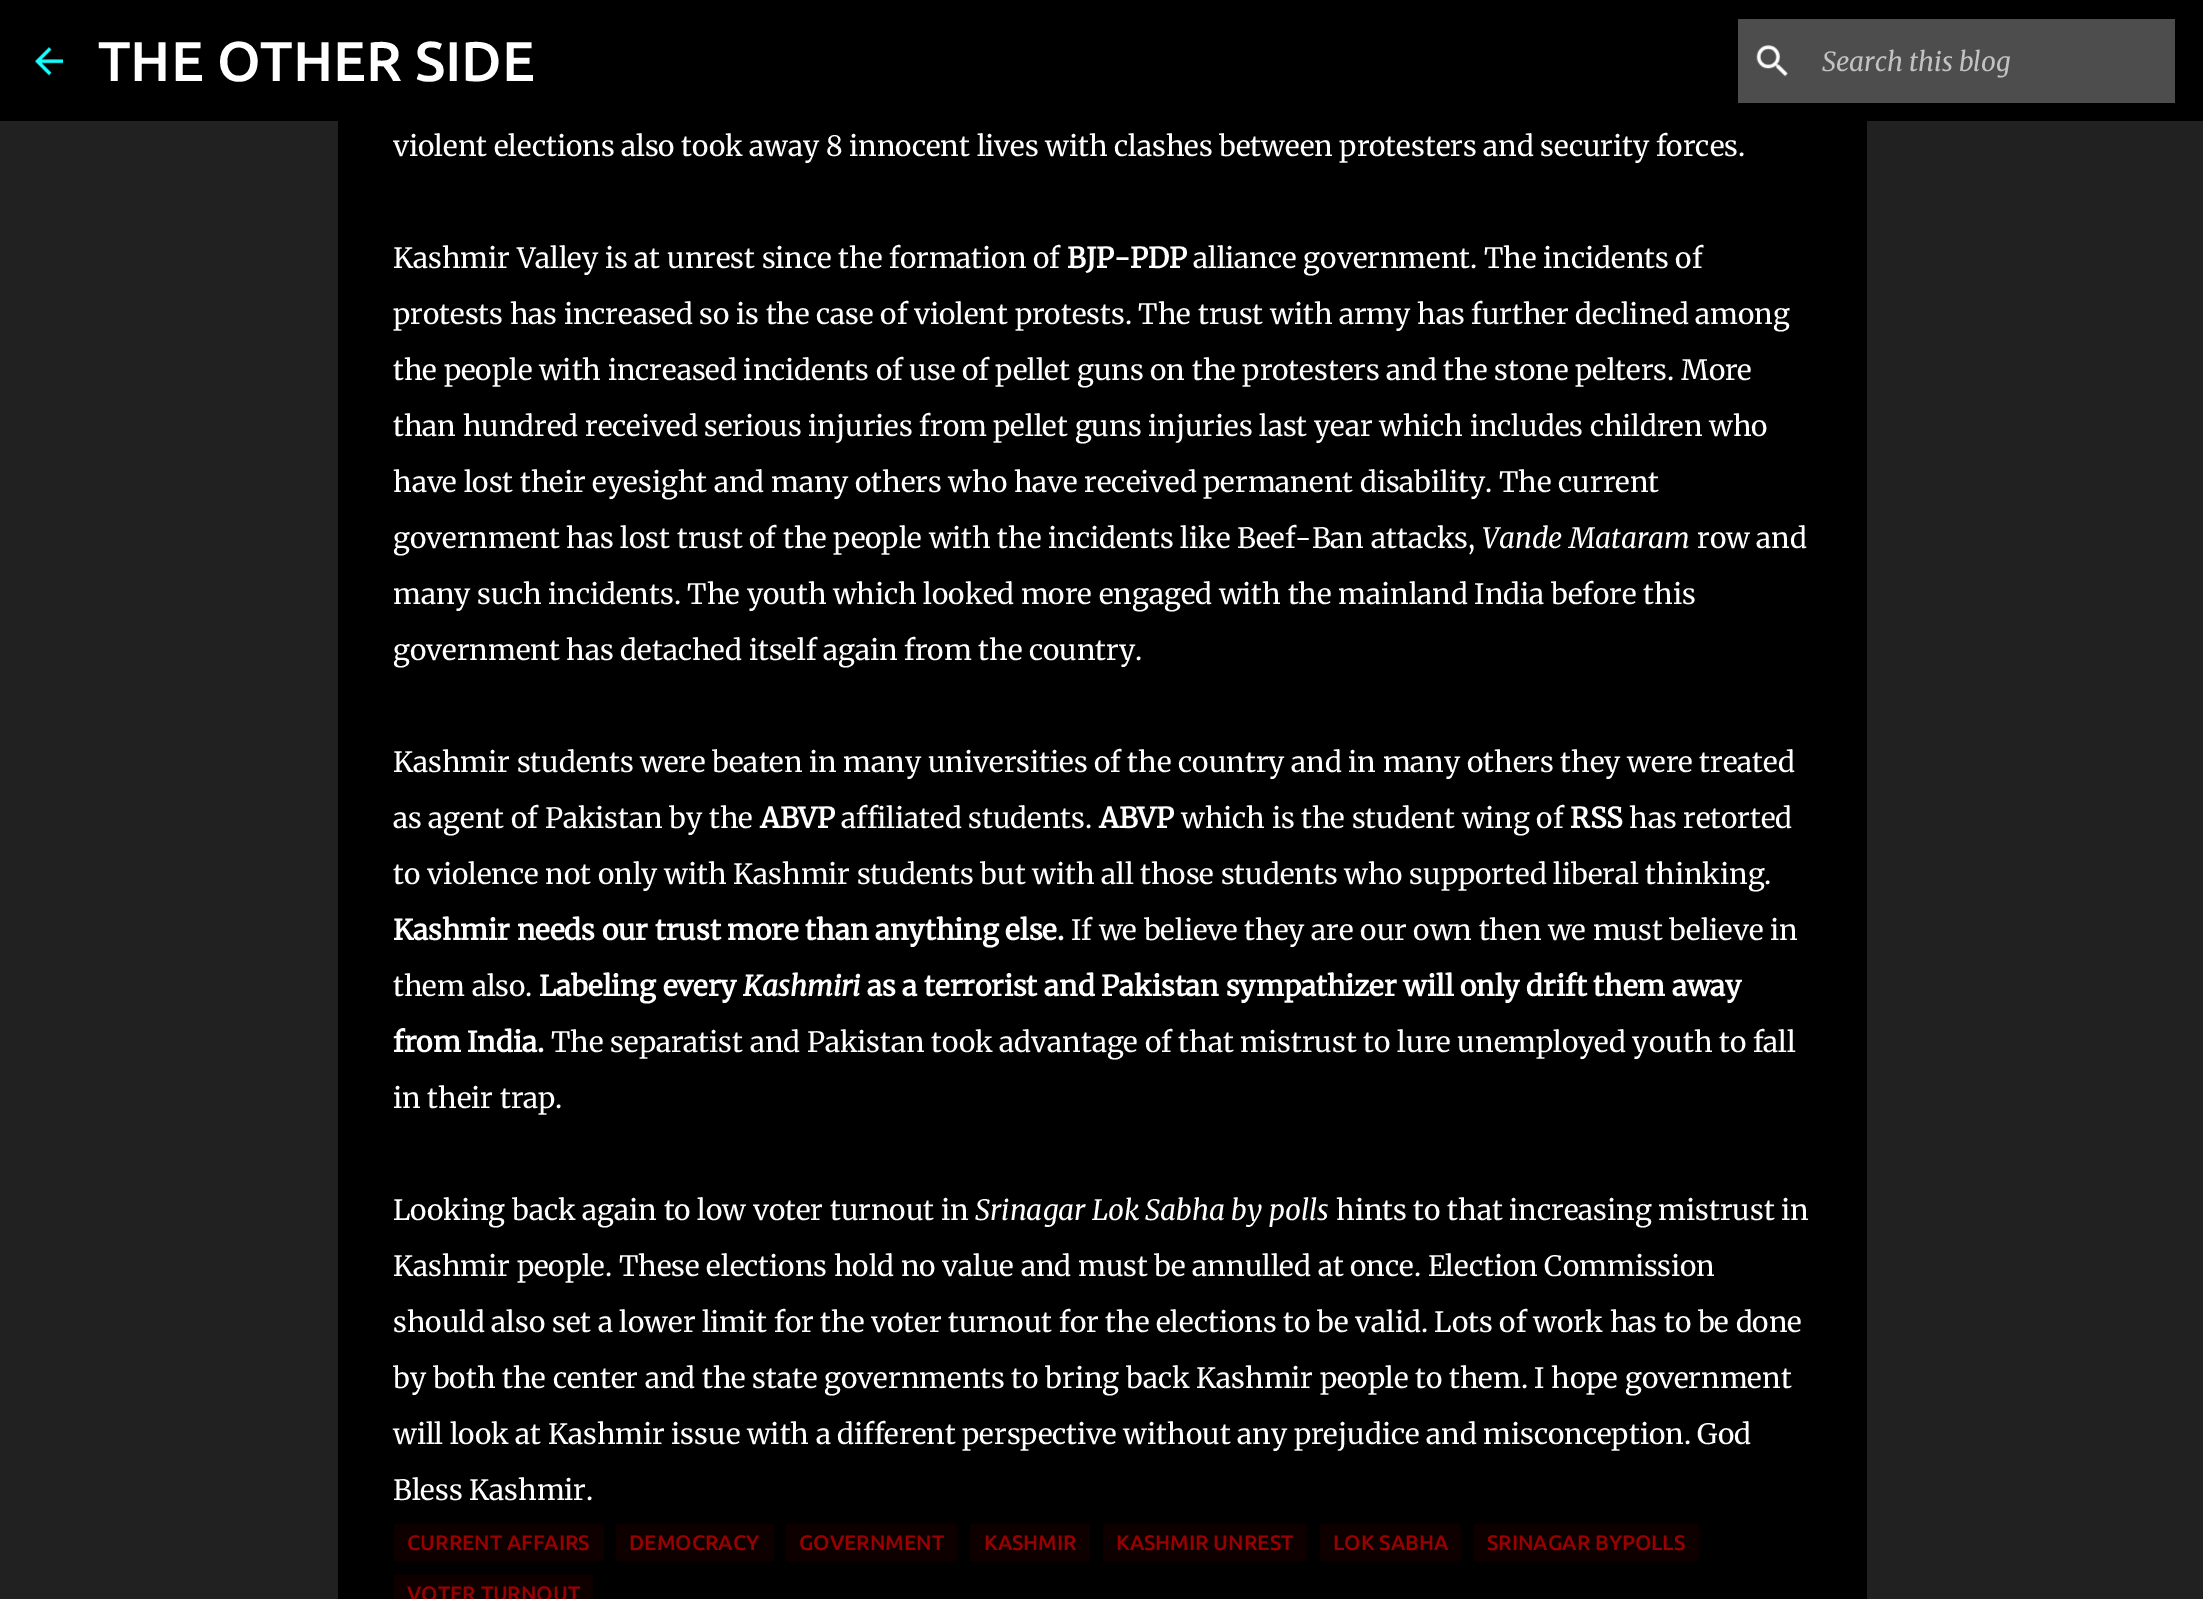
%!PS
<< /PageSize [2203 1599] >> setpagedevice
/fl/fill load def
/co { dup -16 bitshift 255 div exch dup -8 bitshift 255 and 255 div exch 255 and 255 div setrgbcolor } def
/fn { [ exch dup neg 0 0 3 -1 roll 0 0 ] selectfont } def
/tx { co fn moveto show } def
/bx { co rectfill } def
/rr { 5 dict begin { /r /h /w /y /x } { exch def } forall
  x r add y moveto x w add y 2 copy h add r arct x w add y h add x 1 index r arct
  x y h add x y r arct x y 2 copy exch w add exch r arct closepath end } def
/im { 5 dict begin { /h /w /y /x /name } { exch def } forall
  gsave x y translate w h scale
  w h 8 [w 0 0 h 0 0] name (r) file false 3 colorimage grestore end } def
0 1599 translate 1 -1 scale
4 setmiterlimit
0 0 2203 1599 16#212121 bx
0 0 2203 121 16#000000 bx
(media/1.raw) 35 47 28 29 im
1738 19 437 84 16#4D4D4D bx
(media/2.raw) 1756 45 32 32 im
338 121 1529 1478 16#000000 bx
16#0F0000 co
394 1524 210 37 4 rr fl
616 1524 158 37 4 rr fl
786 1524 171 37 4 rr fl
970 1524 120 37 4 rr fl
1103 1524 204 37 4 rr fl
1320 1524 141 37 4 rr fl
1474 1524 225 37 4 rr fl
394 1575 199 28 4 rr fl
(THE OTHER SIDE) 98 81 /Ubuntu-Medium 56 16#FFFFFF tx
(Search this blog) 1822 71 /Merriweather-Italic 26.25 16#C2C2C2 tx
(violent elections also took away 8 innocent lives with clashes between protesters and security forces.) 393 156 /Merriweather-Light 28 16#FFFFFF tx
(Kashmir Valley is at unrest since the formation of) 393 268 /Merriweather-Light 28 16#FFFFFF tx
(BJP-PDP) 1067 268 /Merriweather-Bold 28 16#FFFFFF tx
(alliance government. The incidents of) 1193 268 /Merriweather-Light 28 16#FFFFFF tx
(protests has increased so is the case of violent protests. The trust with army has further declined among) 393 324 /Merriweather-Light 28 16#FFFFFF tx
(the people with increased incidents of use of pellet guns on the protesters and the stone pelters. More) 393 380 /Merriweather-Light 28 16#FFFFFF tx
(than hundred received serious injuries from pellet guns injuries last year which includes children who) 393 436 /Merriweather-Light 28 16#FFFFFF tx
(have lost their eyesight and many others who have received permanent disability. The current) 393 492 /Merriweather-Light 28 16#FFFFFF tx
(government has lost trust of the people with the incidents like Beef-Ban attacks,) 393 548 /Merriweather-Light 28 16#FFFFFF tx
(Vande Mataram) 1482 548 /Merriweather-Italic 28 16#FFFFFF tx
(row and) 1697 548 /Merriweather-Light 28 16#FFFFFF tx
(many such incidents. The youth which looked more engaged with the mainland India before this) 393 604 /Merriweather-Light 28 16#FFFFFF tx
(government has detached itself again from the country.) 393 660 /Merriweather-Light 28 16#FFFFFF tx
(Kashmir students were beaten in many universities of the country and in many others they were treated) 393 772 /Merriweather-Light 28 16#FFFFFF tx
(as agent of Pakistan by the) 393 828 /Merriweather-Light 28 16#FFFFFF tx
(ABVP) 760 828 /Merriweather-Bold 28 16#FFFFFF tx
(affiliated students.) 841 828 /Merriweather-Light 28 16#FFFFFF tx
(ABVP) 1099 828 /Merriweather-Bold 28 16#FFFFFF tx
(which is the student wing of) 1181 828 /Merriweather-Light 28 16#FFFFFF tx
(RSS) 1570 828 /Merriweather-Bold 28 16#FFFFFF tx
(has retorted) 1629 828 /Merriweather-Light 28 16#FFFFFF tx
(to violence not only with Kashmir students but with all those students who supported liberal thinking.) 393 884 /Merriweather-Light 28 16#FFFFFF tx
(Kashmir needs our trust more than anything else.) 393 940 /Merriweather-Bold 28 16#FFFFFF tx
(If we believe they are our own then we must believe in) 1071 940 /Merriweather-Light 28 16#FFFFFF tx
(them also.) 393 996 /Merriweather-Light 28 16#FFFFFF tx
(Labeling every) 539 996 /Merriweather-Bold 28 16#FFFFFF tx
(Kashmiri) 743 996 /Merriweather-BoldItalic 28 16#FFFFFF tx
(as a terrorist and Pakistan sympathizer will only drift them away) 867 996 /Merriweather-Bold 28 16#FFFFFF tx
(from India.) 393 1052 /Merriweather-Bold 28 16#FFFFFF tx
(The separatist and Pakistan took advantage of that mistrust to lure unemployed youth to fall) 551 1052 /Merriweather-Light 28 16#FFFFFF tx
(in their trap.) 393 1108 /Merriweather-Light 28 16#FFFFFF tx
(Looking back again to low voter turnout in) 393 1220 /Merriweather-Light 28 16#FFFFFF tx
(Srinagar Lok Sabha by polls) 975 1220 /Merriweather-Italic 28 16#FFFFFF tx
(hints to that increasing mistrust in) 1336 1220 /Merriweather-Light 28 16#FFFFFF tx
(Kashmir people. These elections hold no value and must be annulled at once. Election Commission) 393 1276 /Merriweather-Light 28 16#FFFFFF tx
(should also set a lower limit for the voter turnout for the elections to be valid. Lots of work has to be done) 393 1332 /Merriweather-Light 28 16#FFFFFF tx
(by both the center and the state governments to bring back Kashmir people to them. I hope government) 393 1388 /Merriweather-Light 28 16#FFFFFF tx
(will look at Kashmir issue with a different perspective without any prejudice and misconception. God) 393 1444 /Merriweather-Light 28 16#FFFFFF tx
(Bless Kashmir.) 393 1500 /Merriweather-Light 28 16#FFFFFF tx
(CURRENT AFFAIRS) 407 1550 /Ubuntu-Medium 21 16#990000 tx
(DEMOCRACY) 629 1550 /Ubuntu-Medium 21 16#990000 tx
(GOVERNMENT) 799 1550 /Ubuntu-Medium 21 16#990000 tx
(KASHMIR) 984 1550 /Ubuntu-Medium 21 16#990000 tx
(KASHMIR UNREST) 1116 1550 /Ubuntu-Medium 21 16#990000 tx
(LOK SABHA) 1333 1550 /Ubuntu-Medium 21 16#990000 tx
(SRINAGAR BYPOLLS) 1487 1550 /Ubuntu-Medium 21 16#990000 tx
(VOTER TURNOUT) 407 1601 /Ubuntu-Medium 21 16#990000 tx
showpage
